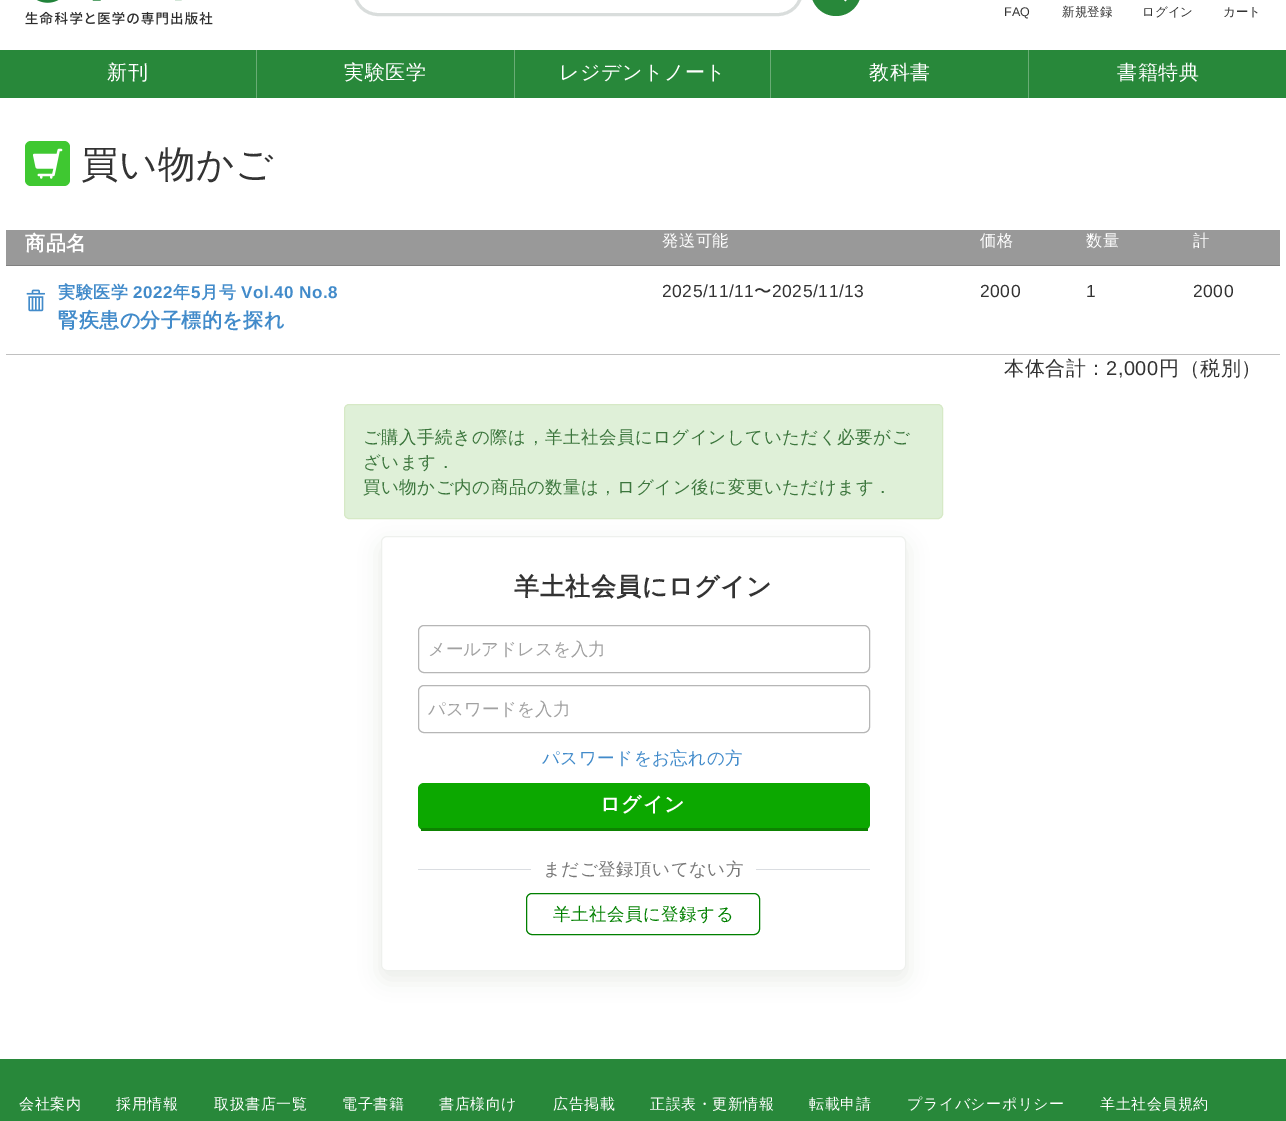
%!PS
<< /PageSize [1286 1121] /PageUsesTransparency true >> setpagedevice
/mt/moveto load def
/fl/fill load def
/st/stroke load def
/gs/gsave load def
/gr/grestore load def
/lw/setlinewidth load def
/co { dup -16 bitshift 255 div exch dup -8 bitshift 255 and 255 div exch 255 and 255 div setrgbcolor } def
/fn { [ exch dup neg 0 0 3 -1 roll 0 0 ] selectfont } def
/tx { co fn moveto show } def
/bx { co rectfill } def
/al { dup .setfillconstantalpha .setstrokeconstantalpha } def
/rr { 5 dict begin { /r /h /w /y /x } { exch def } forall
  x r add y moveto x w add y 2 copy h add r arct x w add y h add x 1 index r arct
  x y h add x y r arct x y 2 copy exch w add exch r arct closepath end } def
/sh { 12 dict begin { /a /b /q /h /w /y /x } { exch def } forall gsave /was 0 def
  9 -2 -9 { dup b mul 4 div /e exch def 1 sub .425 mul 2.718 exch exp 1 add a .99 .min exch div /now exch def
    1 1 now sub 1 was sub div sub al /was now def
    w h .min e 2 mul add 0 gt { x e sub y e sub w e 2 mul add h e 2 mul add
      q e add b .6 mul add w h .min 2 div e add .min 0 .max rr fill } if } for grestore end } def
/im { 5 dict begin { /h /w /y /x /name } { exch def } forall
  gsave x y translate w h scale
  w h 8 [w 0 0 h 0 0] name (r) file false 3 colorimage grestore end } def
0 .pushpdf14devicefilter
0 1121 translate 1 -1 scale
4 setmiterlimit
0 0 1286 1121 16#FFFFFF bx
(media/1.raw) 25 0 188 25 im
16#D9DDDC co
3 lw
354.5 -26.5 447 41 23.5 rr st
16#28883A co
811 -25 50 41 25 rr fl
(media/2.raw) 844 0 3 2 im
0 50 1286 48 16#28883A bx
256 50 1 48 16#69AC75 bx
514 50 1 48 16#69AC75 bx
770 50 1 48 16#69AC75 bx
1028 50 1 48 16#69AC75 bx
16#3FC831 co
25 141 45 45 6 rr fl
(media/3.raw) 33 148 30 31 im
6 230 1274 35 16#999999 bx
6 265 1274 1 16#808080 bx
6 354 1274 1 16#C0C0C0 bx
(media/4.raw) 26 289 19 23 im
16#204313 co
381 544 525 435 6 10.5 .1 sh
16#DFF0D8 co
344.5 404.5 598 114 4.5 rr gs fl gr
16#D6E9C6 co
1 lw
st
16#FFFFFF co
381.5 536.5 524 434 5.5 rr gs fl gr
16#EEF0ED co
st
16#B6B6B6 co
418.5 625.5 451 47 5.5 rr st
418.5 685.5 451 47 5.5 rr st
16#0CA800 co
418 783 452 47 6 rr fl
421 828 447 3 16#0D8301 bx
418 869 452 1 16#DADDE1 bx
531 869 225 1 16#FFFFFF bx
16#018000 co
526.5 893.5 233 41 5.5 rr st
0 1059 1286 62 16#28883A bx
(FAQ) 1004 16 /LiberationSans-Regular 12.5 16#333333 tx
(新規登録) 1062 16 /WenQuanYiZenHei-Medium 12.5 16#333333 tx
(ログイン) 1142 16 /WenQuanYiZenHei-Medium 12.5 16#333333 tx
(カート) 1223 16 /WenQuanYiZenHei-Medium 12.5 16#333333 tx
/WenQuanYiZenHei-Medium 20 fn
16#FFFFFF co
107 79 mt .5 0 (新刊) ashow
344 79 mt .5 0 (実験医学) ashow
559 79 mt .5 0 (レジデントノート) ashow
869 79 mt .5 0 (教科書) ashow
1117 79 mt .5 0 (書籍特典) ashow
/WenQuanYiZenHei-Medium 37.5 fn
16#333333 co
81 177 mt .5 0 (買い物かご) ashow
/WenQuanYiZenHei-Bold 20 fn
16#FFFFFF co
25 250 mt .5 0 (商品名) ashow
/WenQuanYiZenHei-Medium 16.25 fn
662 246 mt .5 0 (発送可能) ashow
980 246 mt .5 0 (価格) ashow
1086 246 mt .5 0 (数量) ashow
1193 246 mt .5 0 (計) ashow
/WenQuanYiZenHei-Bold 17 fn
16#428BCA co
58 298 mt .5 0 (実験医学) ashow
/LiberationSans-Bold 17 fn
133 298 mt .5 0 (2022) ashow
/WenQuanYiZenHei-Bold 17 fn
173 298 mt .5 0 (年) ashow
/LiberationSans-Bold 17 fn
191 298 mt .5 0 (5) ashow
/WenQuanYiZenHei-Bold 17 fn
201 298 mt .5 0 (月号) ashow
/LiberationSans-Bold 17 fn
241 298 mt .5 0 (Vol.40 No.8) ashow
/WenQuanYiZenHei-Bold 20 fn
58 327 mt .5 0 (腎疾患の分子標的を探れ) ashow
/LiberationSans-Regular 17.5 fn
16#333333 co
662 297 mt .5 0 (2025/11/11) ashow
/WenQuanYiZenHei-Medium 17.5 fn
754 297 mt .5 0 (〜) ashow
/LiberationSans-Regular 17.5 fn
772 297 mt .5 0 (2025/11/13) ashow
980 297 mt .5 0 (2000) ashow
1086 297 mt .5 0 (1) ashow
1193 297 mt .5 0 (2000) ashow
/WenQuanYiZenHei-Medium 20 fn
1004 375 mt .5 0 (本体合計：) ashow
/LiberationSans-Regular 20 fn
1106 375 mt .5 0 (2,000) ashow
/WenQuanYiZenHei-Medium 20 fn
1159 375 mt .5 0 (円（税別）) ashow
/WenQuanYiZenHei-Medium 17.5 fn
16#3C763D co
363 443 mt .5 0 (ご購入手続きの際は，羊土社会員にログインしていただく必要がご) ashow
363 468 mt .5 0 (ざいます．) ashow
363 493 mt .5 0 (買い物かご内の商品の数量は，ログイン後に変更いただけます．) ashow
/WenQuanYiZenHei-Bold 25 fn
16#333333 co
514 595 mt .5 0 (羊土社会員にログイン) ashow
(メールアドレスを入力) 428 655 /WenQuanYiZenHei-Medium 17.5 16#A1A1A1 tx
(パスワードを入力) 428 715 /WenQuanYiZenHei-Medium 17.5 16#A1A1A1 tx
16#428BCA co
542 764 mt .5 0 (パスワードをお忘れの方) ashow
/WenQuanYiZenHei-Bold 20 fn
16#FFFFFF co
600 811 mt 1 0 (ログイン) ashow
/WenQuanYiZenHei-Medium 17.5 fn
16#777777 co
543 875 mt .5 0 (まだご登録頂いてない方) ashow
16#018000 co
553 920 mt .5 0 (羊土社会員に登録する) ashow
/WenQuanYiZenHei-Medium 15 fn
16#FFFFFF co
19 1109 mt .5 0 (会社案内) ashow
116 1109 mt .5 0 (採用情報) ashow
214 1109 mt .5 0 (取扱書店一覧) ashow
342 1109 mt .5 0 (電子書籍) ashow
439 1109 mt .5 0 (書店様向け) ashow
553 1109 mt .5 0 (広告掲載) ashow
650 1109 mt .5 0 (正誤表・更新情報) ashow
809 1109 mt .5 0 (転載申請) ashow
907 1109 mt .5 0 (プライバシーポリシー) ashow
1100 1109 mt .5 0 (羊土社会員規約) ashow
.poppdf14devicefilter showpage
